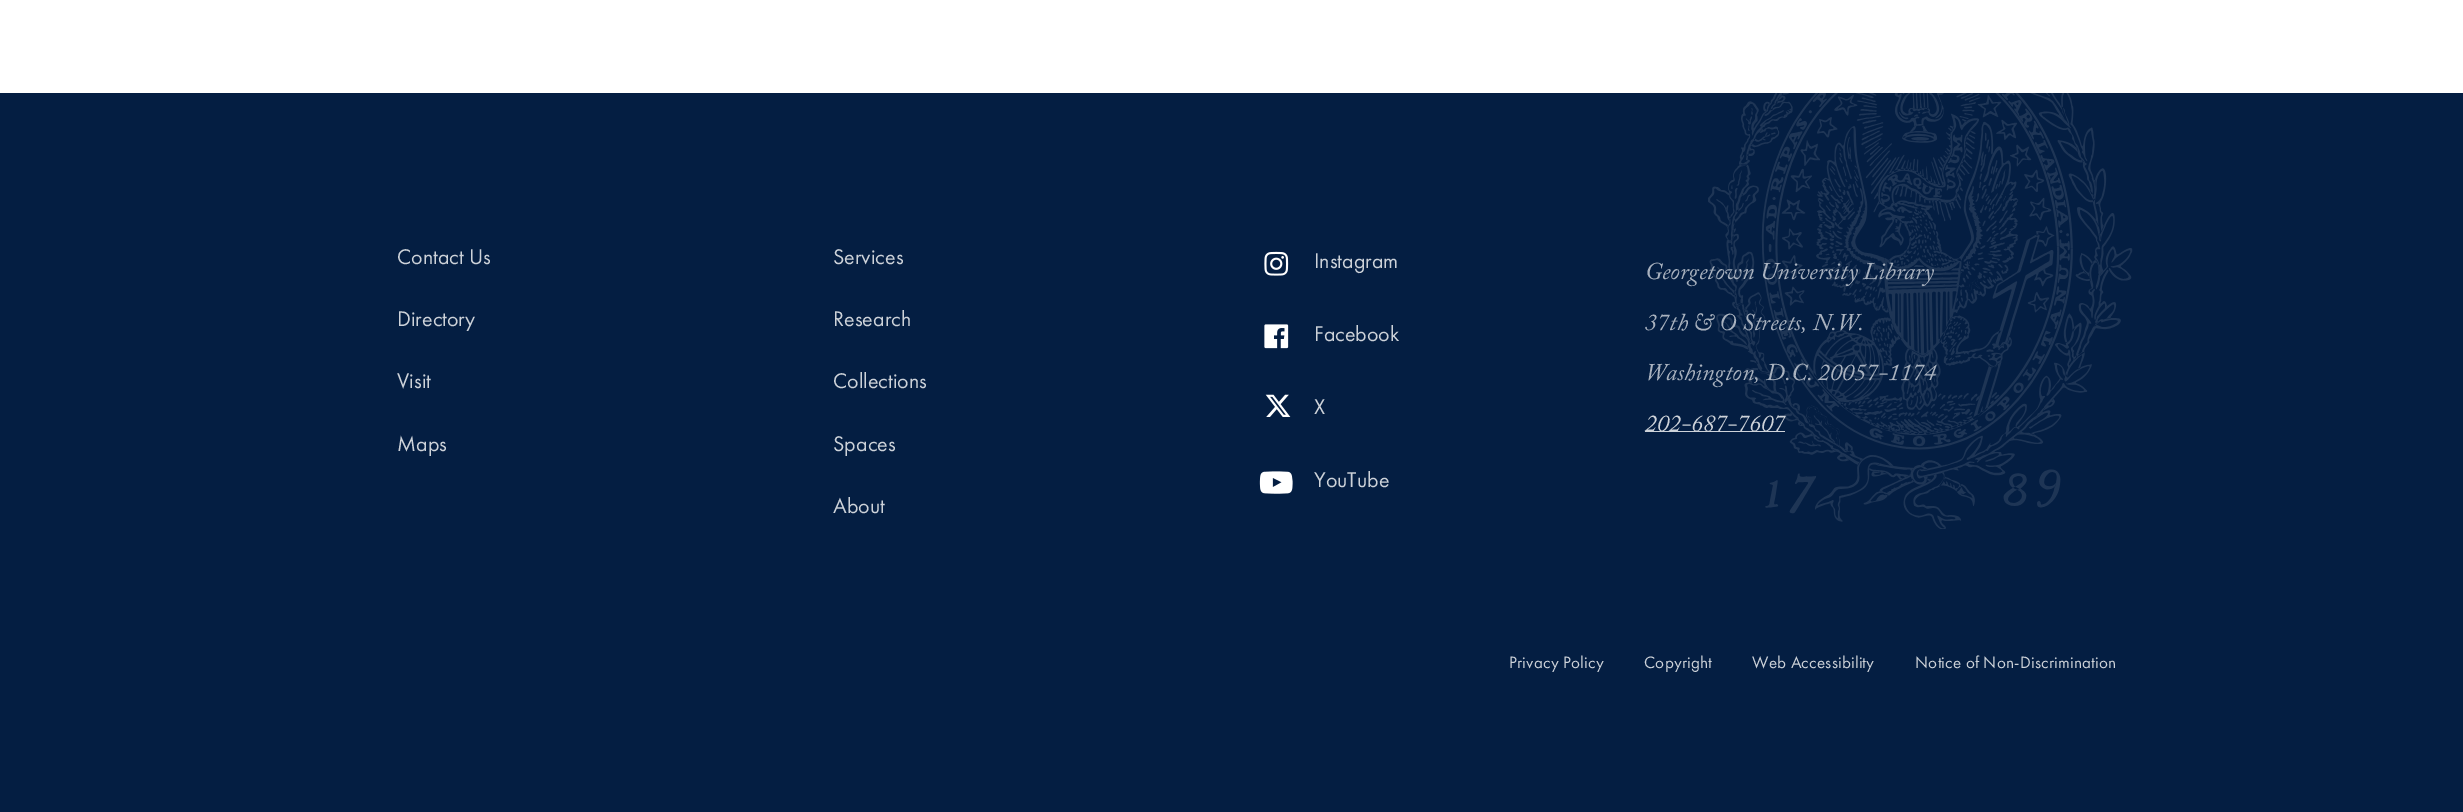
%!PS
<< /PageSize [2463 812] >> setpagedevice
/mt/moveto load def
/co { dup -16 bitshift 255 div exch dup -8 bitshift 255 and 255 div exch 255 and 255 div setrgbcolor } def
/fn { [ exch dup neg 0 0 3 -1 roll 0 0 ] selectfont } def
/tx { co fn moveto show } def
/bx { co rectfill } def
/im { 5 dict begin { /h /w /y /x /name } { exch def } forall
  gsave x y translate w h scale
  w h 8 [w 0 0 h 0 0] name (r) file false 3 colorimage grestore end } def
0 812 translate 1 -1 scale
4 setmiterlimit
0 0 2463 812 16#FFFFFF bx
0 93 2463 719 16#041E42 bx
(media/1.raw) 1708 93 425 436 im
(media/2.raw) 1264 251 25 25 im
(media/3.raw) 1264 324 25 25 im
(media/4.raw) 1265 394 26 23 im
(media/5.raw) 1259 471 34 23 im
1645 431 140 1 16#CDD2D9 bx
(Contact Us) 397 264 /FuturaPT-Regular 22 16#CDD2D9 tx
(Directory) 397 326 /FuturaPT-Regular 22 16#CDD2D9 tx
(Visit) 397 388 /FuturaPT-Regular 22 16#CDD2D9 tx
(Maps) 397 451 /FuturaPT-Regular 22 16#CDD2D9 tx
(Services) 833 264 /FuturaPT-Regular 22 16#CDD2D9 tx
(Research) 833 326 /FuturaPT-Regular 22 16#CDD2D9 tx
(Collections) 833 388 /FuturaPT-Regular 22 16#CDD2D9 tx
(Spaces) 833 451 /FuturaPT-Regular 22 16#CDD2D9 tx
(About) 833 513 /FuturaPT-Regular 22 16#CDD2D9 tx
(Instagram) 1314 268 /FuturaPT-Regular 22 16#CDD2D9 tx
(Facebook) 1314 341 /FuturaPT-Regular 22 16#CDD2D9 tx
(X) 1314 414 /FuturaPT-Regular 22 16#CDD2D9 tx
(YouTube) 1314 487 /FuturaPT-Regular 22 16#CDD2D9 tx
(Georgetown University Library) 1645 279 /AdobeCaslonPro-Italic 24 16#A9B2BF tx
(37th & O Streets, N.W.) 1645 330 /AdobeCaslonPro-Italic 24 16#A9B2BF tx
(Washington, D.C. 20057-1174) 1645 380 /AdobeCaslonPro-Italic 24 16#A9B2BF tx
(202-687-7607) 1645 431 /AdobeCaslonPro-Italic 24 16#CDD2D9 tx
/FuturaPT-Regular 17.1 fn
1509 668 mt .25 0 (Privacy Policy) ashow
1644 668 mt .25 0 (Copyright) ashow
1752 668 mt .25 0 (Web Accessibility) ashow
1915 668 mt .25 0 (Notice of Non-Discrimination) ashow
showpage
